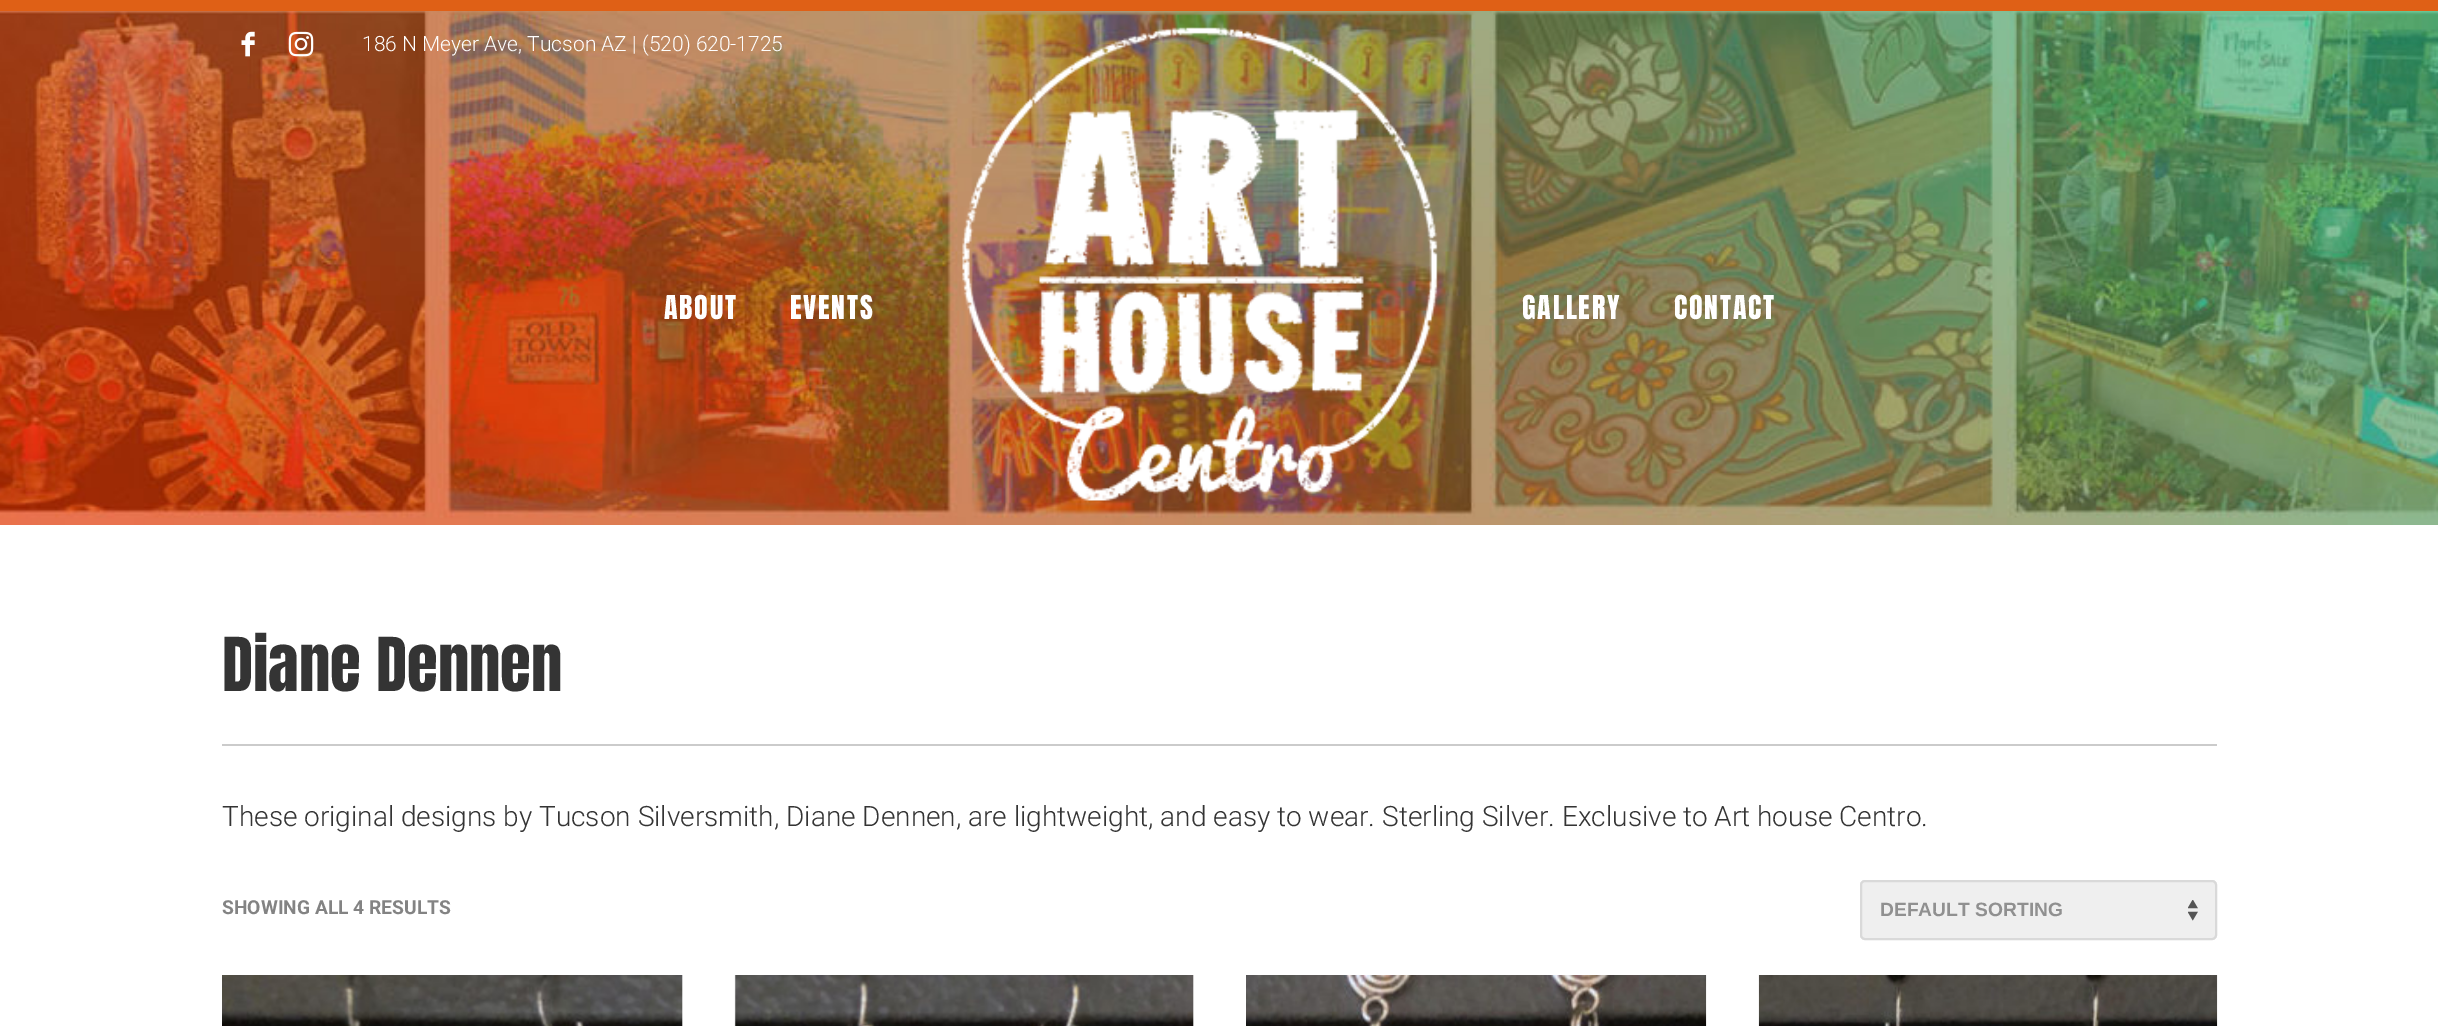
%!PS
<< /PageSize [2438 1026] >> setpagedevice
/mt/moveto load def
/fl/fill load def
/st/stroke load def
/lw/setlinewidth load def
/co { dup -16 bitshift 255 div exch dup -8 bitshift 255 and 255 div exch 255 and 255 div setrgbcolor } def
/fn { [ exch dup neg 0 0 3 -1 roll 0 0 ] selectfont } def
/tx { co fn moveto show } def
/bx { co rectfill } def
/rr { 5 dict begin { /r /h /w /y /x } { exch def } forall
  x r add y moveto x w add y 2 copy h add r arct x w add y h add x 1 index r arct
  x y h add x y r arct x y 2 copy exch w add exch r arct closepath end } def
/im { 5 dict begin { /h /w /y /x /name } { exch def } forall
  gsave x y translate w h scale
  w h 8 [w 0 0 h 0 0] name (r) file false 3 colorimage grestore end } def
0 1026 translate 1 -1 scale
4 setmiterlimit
0 0 2438 1026 16#FFFFFF bx
(media/1.raw) 0 11 2438 514 im
0 0 2438 11 16#DF6016 bx
(media/2.raw) 241 31 14 26 im
(media/3.raw) 288 31 26 26 im
(media/4.raw) 962 27 476 474 im
222 744 1995 2 16#CBCBCB bx
16#EFEFEF co
1860 880 357 60 5 rr fl
(media/5.raw) 2188 900 10 21 im
16#D9D9D9 co
2 lw
1861 881 355 58 4 rr st
(media/6.raw) 222 975 461 51 im
(media/7.raw) 734 975 460 51 im
(media/8.raw) 1246 975 461 51 im
(media/9.raw) 1758 975 460 51 im
(186 N Meyer Ave, Tucson AZ | \(520\) 620-1725) 362 51 /Roboto-Light 21 16#FFFFFF tx
/Anton-Regular 28 fn
664 319 mt 1.75 0 (ABOUT) ashow
790 319 mt 1.75 0 (EVENTS) ashow
1522 319 mt 1.75 0 (GALLERY) ashow
1674 319 mt 1.75 0 (CONTACT) ashow
(Diane Dennen) 222 691 /Anton-Regular 63 16#343434 tx
(These original designs by Tucson Silversmith, Diane Dennen, are lightweight, and easy to wear. Sterling Silver. Exclusive to Art house Centro.) 222 826 /Roboto-Light 28 16#343434 tx
(SHOWING ALL 4 RESULTS) 222 914 /Roboto-Bold 19.25 16#838383 tx
(DEFAULT SORTING) 1880 916 /LiberationSans-Bold 19.25 16#909090 tx
showpage
